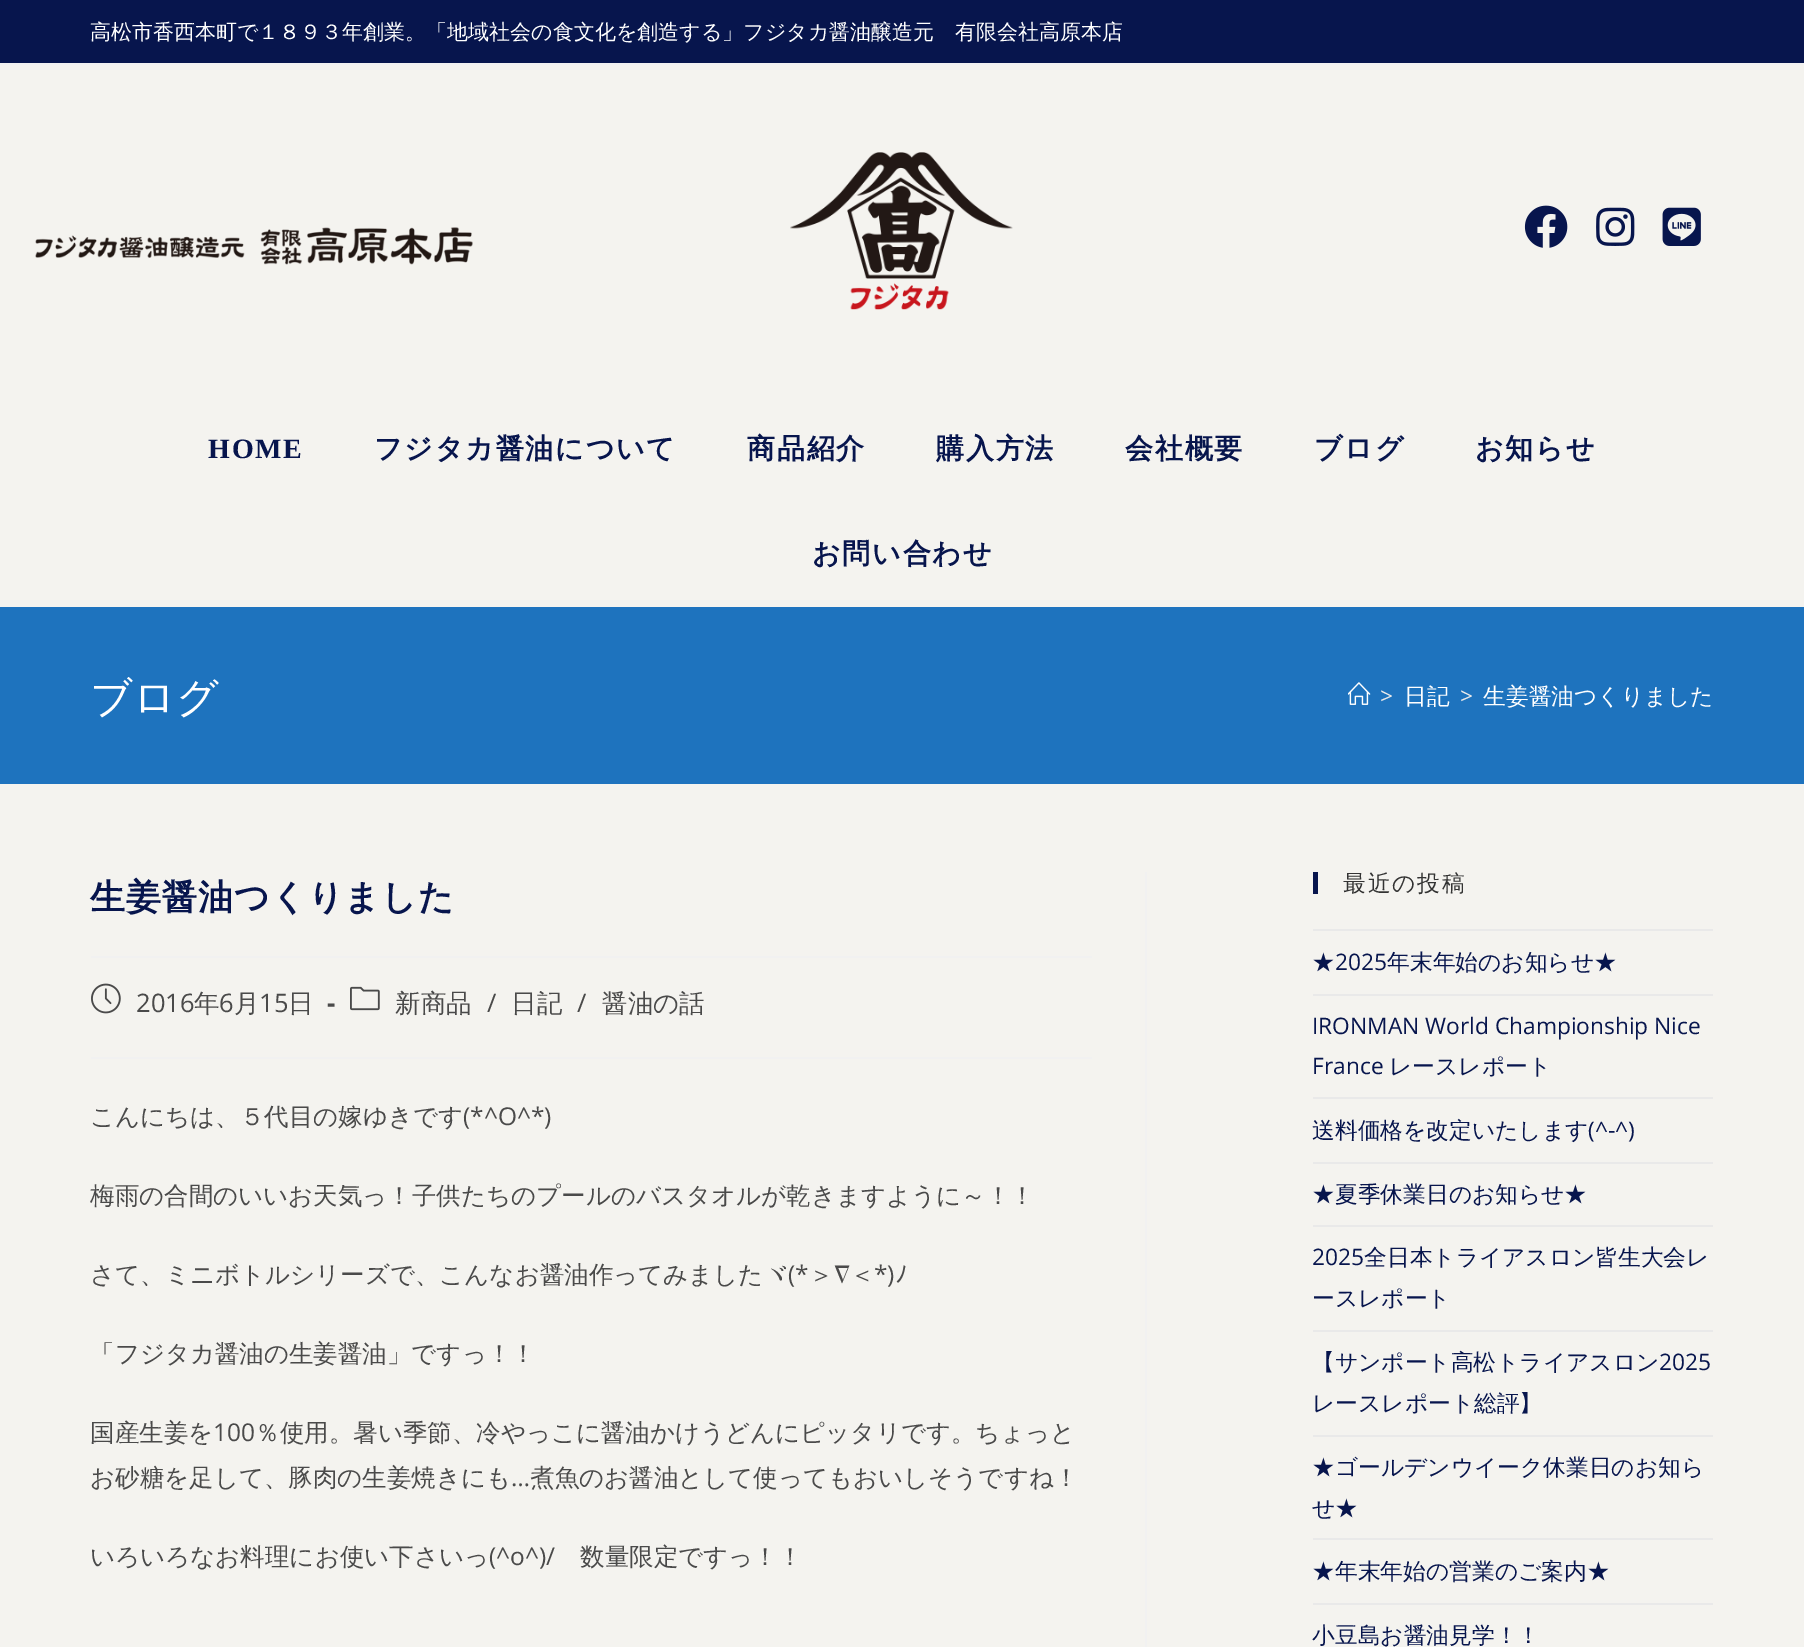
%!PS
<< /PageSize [1804 1647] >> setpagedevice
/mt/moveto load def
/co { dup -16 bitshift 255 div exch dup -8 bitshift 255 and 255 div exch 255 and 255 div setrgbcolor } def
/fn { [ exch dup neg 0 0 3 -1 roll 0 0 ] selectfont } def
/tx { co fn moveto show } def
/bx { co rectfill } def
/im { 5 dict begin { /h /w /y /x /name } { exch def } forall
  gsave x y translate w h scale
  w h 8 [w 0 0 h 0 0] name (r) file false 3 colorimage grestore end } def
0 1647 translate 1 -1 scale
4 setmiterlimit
0 0 1804 1647 16#F4F3EF bx
0 0 1804 63 16#07154D bx
0 63 1804 2 16#F1F1F1 bx
(media/1.raw) 35 227 438 38 im
(media/2.raw) 790 152 223 158 im
(media/3.raw) 1524 205 44 43 im
(media/4.raw) 1596 207 39 39 im
(media/5.raw) 1662 207 39 39 im
0 607 1804 177 16#1E73BE bx
(media/6.raw) 1348 682 23 23 im
1145 872 2 775 16#F1F1F1 bx
91 956 1001 2 16#F1F1F1 bx
91 1057 1001 2 16#F1F1F1 bx
(media/7.raw) 91 983 30 31 im
(media/8.raw) 350 986 30 25 im
1313 872 5 22 16#07154D bx
1313 929 400 2 16#E9E9E9 bx
1313 994 400 2 16#E9E9E9 bx
1313 1097 400 2 16#E9E9E9 bx
1313 1162 400 2 16#E9E9E9 bx
1313 1225 400 2 16#E9E9E9 bx
1313 1330 400 2 16#E9E9E9 bx
1313 1435 400 2 16#E9E9E9 bx
1313 1538 400 2 16#E9E9E9 bx
1313 1603 400 2 16#E9E9E9 bx
(高松市香西本町で１８９３年創業。「地域社会の食文化を創造する」フジタカ醤油醸造元　有限会社高原本店) 90 39 /WenQuanYiZenHei-Medium 21 16#FFFFFF tx
/LiberationSerif-Bold 28 fn
16#07154D co
208 458 mt 1.75 0 (HOME) ashow
/WenQuanYiZenHei-Bold 28 fn
374 458 mt 1.75 0 (フジタカ醤油について) ashow
747 458 mt 1.75 0 (商品紹介) ashow
936 458 mt 1.75 0 (購入方法) ashow
1125 458 mt 1.75 0 (会社概要) ashow
1314 458 mt 1.75 0 (ブログ) ashow
1475 458 mt 1.75 0 (お知らせ) ashow
812 563 mt 1.75 0 (お問い合わせ) ashow
(ブログ) 90 712 /WenQuanYiZenHei-Medium 42 16#FFFFFF tx
(>) 1380 704 /OpenSans-Regular 22.75 16#EAEAEA tx
(日記) 1404 704 /WenQuanYiZenHei-Medium 22.75 16#FFFFFF tx
(>) 1460 704 /OpenSans-Regular 22.75 16#EAEAEA tx
(生姜醤油つくりました) 1483 704 /WenQuanYiZenHei-Medium 22.75 16#FFFFFF tx
/WenQuanYiZenHei-Bold 35 fn
16#07154D co
90 909 mt 1 0 (生姜醤油つくりました) ashow
(2016) 136 1012 /OpenSans-Regular 25.5 16#4A4A4A tx
(年) 194 1012 /WenQuanYiZenHei-Medium 25.5 16#4A4A4A tx
(6) 219 1012 /OpenSans-Regular 25.5 16#4A4A4A tx
(月) 234 1012 /WenQuanYiZenHei-Medium 25.5 16#4A4A4A tx
(15) 259 1012 /OpenSans-Regular 25.5 16#4A4A4A tx
(日) 288 1012 /WenQuanYiZenHei-Medium 25.5 16#4A4A4A tx
(-) 327 1012 /OpenSans-Bold 25.5 16#4A4A4A tx
(新商品) 395 1012 /WenQuanYiZenHei-Medium 25.5 16#4A4A4A tx
(/) 487 1012 /OpenSans-Regular 25.5 16#4A4A4A tx
(日記) 511 1012 /WenQuanYiZenHei-Medium 25.5 16#4A4A4A tx
(/) 577 1012 /OpenSans-Regular 25.5 16#4A4A4A tx
(醤油の話) 602 1012 /WenQuanYiZenHei-Medium 25.5 16#4A4A4A tx
(こんにちは、５代目の嫁ゆきです) 90 1125 /WenQuanYiZenHei-Medium 24.5 16#4A4A4A tx
(\(*^O^*\)) 463 1125 /OpenSans-Regular 24.5 16#4A4A4A tx
(梅雨の合間のいいお天気っ！子供たちのプールのバスタオルが乾きますように～！！) 90 1204 /WenQuanYiZenHei-Medium 24.5 16#4A4A4A tx
(さて、ミニボトルシリーズで、こんなお醤油作ってみましたヾ) 90 1283 /WenQuanYiZenHei-Medium 24.5 16#4A4A4A tx
(\(*) 788 1283 /OpenSans-Regular 24.5 16#4A4A4A tx
(＞∇＜) 809 1283 /WenQuanYiZenHei-Medium 24.5 16#4A4A4A tx
(*\)) 874 1283 /OpenSans-Regular 24.5 16#4A4A4A tx
(ﾉ) 895 1283 /IPAPGothic-Regular 24.5 16#4A4A4A tx
(「フジタカ醤油の生姜醤油」ですっ！！) 90 1362 /WenQuanYiZenHei-Medium 24.5 16#4A4A4A tx
(国産生姜を) 90 1441 /WenQuanYiZenHei-Medium 24.5 16#4A4A4A tx
(100) 213 1441 /OpenSans-Regular 24.5 16#4A4A4A tx
(％使用。暑い季節、冷やっこに醤油かけうどんにピッタリです。ちょっと) 255 1441 /WenQuanYiZenHei-Medium 24.5 16#4A4A4A tx
(お砂糖を足して、豚肉の生姜焼きにも) 90 1486 /WenQuanYiZenHei-Medium 24.5 16#4A4A4A tx
(…) 511 1486 /OpenSans-Regular 24.5 16#4A4A4A tx
(煮魚のお醤油として使ってもおいしそうですね！) 530 1486 /WenQuanYiZenHei-Medium 24.5 16#4A4A4A tx
(いろいろなお料理にお使い下さいっ) 90 1565 /WenQuanYiZenHei-Medium 24.5 16#4A4A4A tx
(\(^o^\)/) 489 1565 /OpenSans-Regular 24.5 16#4A4A4A tx
(数量限定ですっ！！) 580 1565 /WenQuanYiZenHei-Medium 24.5 16#4A4A4A tx
/WenQuanYiZenHei-Medium 22.75 fn
16#333333 co
1343 891 mt 1.75 0 (最近の投稿) ashow
(★) 1312 970 /WenQuanYiZenHei-Medium 22.75 16#07154D tx
(2025) 1335 970 /OpenSans-Regular 22.75 16#07154D tx
(年末年始のお知らせ★) 1387 970 /WenQuanYiZenHei-Medium 22.75 16#07154D tx
(IRONMAN World Championship Nice) 1312 1034 /OpenSans-Regular 22.75 16#07154D tx
(France) 1312 1074 /OpenSans-Regular 22.75 16#07154D tx
(レースレポート) 1389 1074 /WenQuanYiZenHei-Medium 22.75 16#07154D tx
(送料価格を改定いたします) 1312 1138 /WenQuanYiZenHei-Medium 22.75 16#07154D tx
(\(^-^\)) 1588 1138 /OpenSans-Regular 22.75 16#07154D tx
(★夏季休業日のお知らせ★) 1312 1202 /WenQuanYiZenHei-Medium 22.75 16#07154D tx
(2025) 1312 1265 /OpenSans-Regular 22.75 16#07154D tx
(全日本トライアスロン皆生大会レ) 1364 1265 /WenQuanYiZenHei-Medium 22.75 16#07154D tx
(ースレポート) 1312 1306 /WenQuanYiZenHei-Medium 22.75 16#07154D tx
(【サンポート高松トライアスロン) 1312 1370 /WenQuanYiZenHei-Medium 22.75 16#07154D tx
(2025) 1659 1370 /OpenSans-Regular 22.75 16#07154D tx
(レースレポート総評】) 1312 1411 /WenQuanYiZenHei-Medium 22.75 16#07154D tx
(★ゴールデンウイーク休業日のお知ら) 1312 1475 /WenQuanYiZenHei-Medium 22.75 16#07154D tx
(せ★) 1312 1516 /WenQuanYiZenHei-Medium 22.75 16#07154D tx
(★年末年始の営業のご案内★) 1312 1579 /WenQuanYiZenHei-Medium 22.75 16#07154D tx
(小豆島お醤油見学！！) 1312 1643 /WenQuanYiZenHei-Medium 22.75 16#07154D tx
showpage
